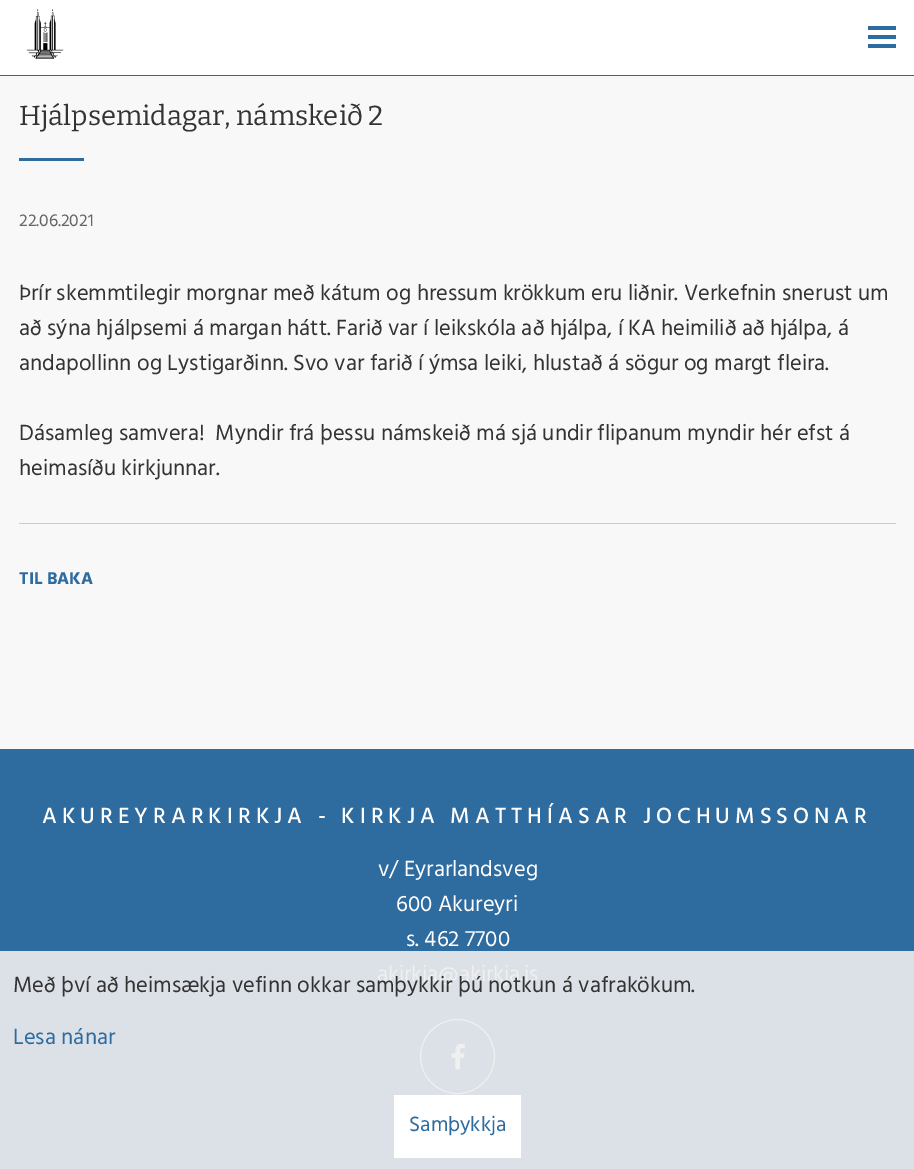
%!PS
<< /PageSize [914 1169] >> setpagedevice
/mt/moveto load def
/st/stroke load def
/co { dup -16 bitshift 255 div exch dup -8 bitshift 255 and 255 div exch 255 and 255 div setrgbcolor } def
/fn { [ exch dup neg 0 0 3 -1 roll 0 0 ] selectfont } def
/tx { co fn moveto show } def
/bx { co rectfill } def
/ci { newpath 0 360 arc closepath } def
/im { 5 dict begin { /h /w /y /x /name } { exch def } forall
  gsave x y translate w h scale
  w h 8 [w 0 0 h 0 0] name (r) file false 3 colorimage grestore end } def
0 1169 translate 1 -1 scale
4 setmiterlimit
0 0 914 1169 16#F8F8F8 bx
0 0 914 75 16#FFFFFF bx
0 75 914 1 16#2E6B9F bx
(media/1.raw) 26 9 38 50 im
868 26 28 4 16#2E6B9F bx
868 35 28 4 16#2E6B9F bx
868 44 28 4 16#2E6B9F bx
19 158 65 3 16#2E6B9F bx
19 523 877 1 16#CCCCCC bx
0 749 914 202 16#2E6B9F bx
0 951 914 218 16#DBE1E6 bx
16#F0F0F0 co
457.5 1056.5 37 ci st
(media/2.raw) 451 1043 14 27 im
394 1095 127 63 16#FFFFFF bx
(Hjálpsemidagar, námskeið 2) 19 125 /Bitter-Thin 27.5 16#333333 tx
(22.06.2021) 19 226 /Hind-Regular 17.5 16#666666 tx
(Þrír skemmtilegir morgnar með kátum og hressum krökkum eru liðnir. Verkefnin snerust um) 19 300 /Hind-Regular 22.5 16#333333 tx
(að sýna hjálpsemi á margan hátt. Farið var í leikskóla að hjálpa, í KA heimilið að hjálpa, á) 19 335 /Hind-Regular 22.5 16#333333 tx
(andapollinn og Lystigarðinn. Svo var farið í ýmsa leiki, hlustað á sögur og margt fleira.) 19 370 /Hind-Regular 22.5 16#333333 tx
(Dásamleg samvera!  Myndir frá þessu námskeið má sjá undir flipanum myndir hér efst á) 19 440 /Hind-Regular 22.5 16#333333 tx
(heimasíðu kirkjunnar.) 19 475 /Hind-Regular 22.5 16#333333 tx
(TIL BAKA) 19 584 /Hind-Bold 17.5 16#2E6B9F tx
/Hind-Medium 22.5 fn
16#FFFFFF co
42 823 mt 5 0 (AKUREYRARKIRKJA - KIRKJA MATTHÍASAR JOCHUMSSONAR) ashow
(v/ Eyrarlandsveg) 378 876 /Hind-Regular 22.5 16#FFFFFF tx
(600 Akureyri) 396 911 /Hind-Regular 22.5 16#FFFFFF tx
(s. 462 7700) 406 946 /Hind-Regular 22.5 16#FFFFFF tx
(akirkja@akirkja.is) 377 981 /Hind-Regular 22.5 16#F0F0F0 tx
(Með því að heimsækja vefinn okkar samþykkir þú notkun á vafrakökum.) 13 992 /Hind-Regular 22.5 16#333333 tx
(Lesa nánar) 13 1044 /Hind-Regular 22.5 16#2E6B9F tx
(Samþykkja) 409 1131 /Hind-Regular 21.25 16#2E6B9F tx
showpage
